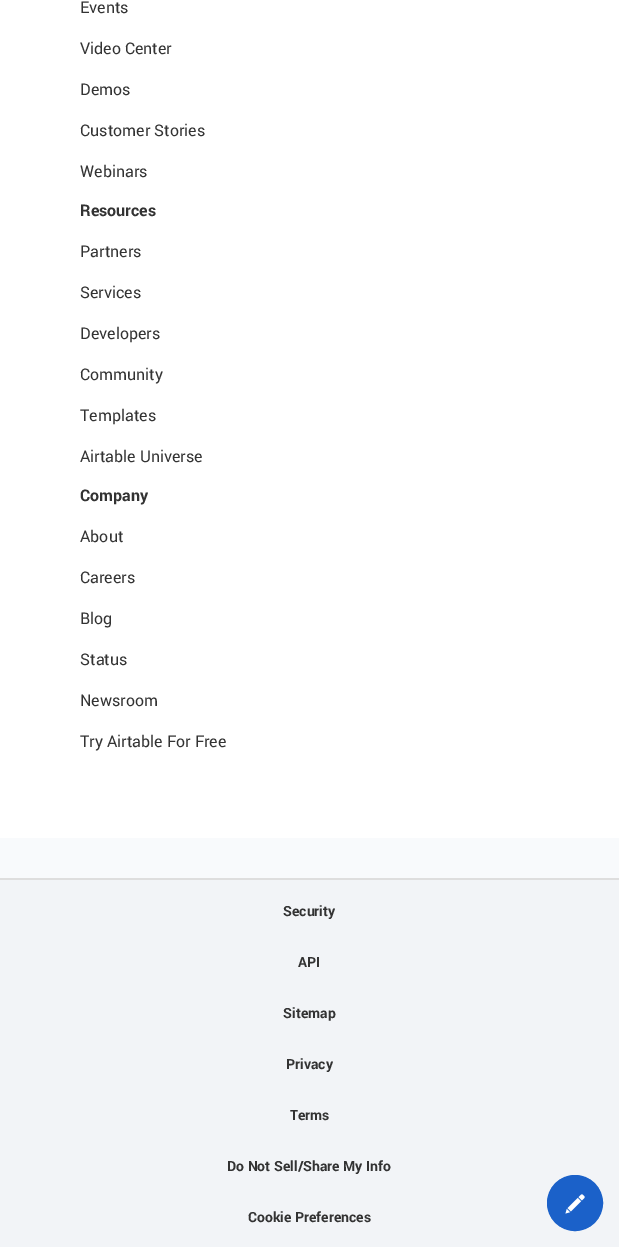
%!PS
<< /PageSize [619 1247] >> setpagedevice
/fl/fill load def
/st/stroke load def
/gs/gsave load def
/gr/grestore load def
/co { dup -16 bitshift 255 div exch dup -8 bitshift 255 and 255 div exch 255 and 255 div setrgbcolor } def
/fn { [ exch dup neg 0 0 3 -1 roll 0 0 ] selectfont } def
/tx { co fn moveto show } def
/bx { co rectfill } def
/ci { newpath 0 360 arc closepath } def
/im { 5 dict begin { /h /w /y /x /name } { exch def } forall
  gsave x y translate w h scale
  w h 8 [w 0 0 h 0 0] name (r) file false 3 colorimage grestore end } def
0 1247 translate 1 -1 scale
4 setmiterlimit
0 0 619 1247 16#F8FAFC bx
0 0 619 838 16#FFFFFF bx
0 880 619 367 16#F2F4F7 bx
0 878 619 2 16#DEDEDE bx
16#1B61C9 co
575 1203 27.5 ci gs fl gr
st
(media/1.raw) 565 1194 20 20 im
(Events) 80 13 /Roboto-Regular 16 16#333333 tx
(Video Center) 80 54 /Roboto-Regular 16 16#333333 tx
(Demos) 80 95 /Roboto-Regular 16 16#333333 tx
(Customer Stories) 80 136 /Roboto-Regular 16 16#333333 tx
(Webinars) 80 177 /Roboto-Regular 16 16#333333 tx
(Resources) 80 216 /Roboto-Bold 16 16#333333 tx
(Partners) 80 257 /Roboto-Regular 16 16#333333 tx
(Services) 80 298 /Roboto-Regular 16 16#333333 tx
(Developers) 80 339 /Roboto-Regular 16 16#333333 tx
(Community) 80 380 /Roboto-Regular 16 16#333333 tx
(Templates) 80 421 /Roboto-Regular 16 16#333333 tx
(Airtable Universe) 80 462 /Roboto-Regular 16 16#333333 tx
(Company) 80 501 /Roboto-Bold 16 16#333333 tx
(About) 80 542 /Roboto-Regular 16 16#333333 tx
(Careers) 80 583 /Roboto-Regular 16 16#333333 tx
(Blog) 80 624 /Roboto-Regular 16 16#333333 tx
(Status) 80 665 /Roboto-Regular 16 16#333333 tx
(Newsroom) 80 706 /Roboto-Regular 16 16#333333 tx
(Try Airtable For Free) 80 747 /Roboto-Regular 16 16#333333 tx
(Security) 283 916 /Roboto-Bold 14 16#333333 tx
(API) 298 967 /Roboto-Bold 14 16#333333 tx
(Sitemap) 283 1018 /Roboto-Bold 14 16#333333 tx
(Privacy) 286 1069 /Roboto-Bold 14 16#333333 tx
(Terms) 290 1120 /Roboto-Bold 14 16#333333 tx
(Do Not Sell/Share My Info) 227 1171 /Roboto-Bold 14 16#333333 tx
(Cookie Preferences) 248 1222 /Roboto-Bold 14 16#333333 tx
showpage
